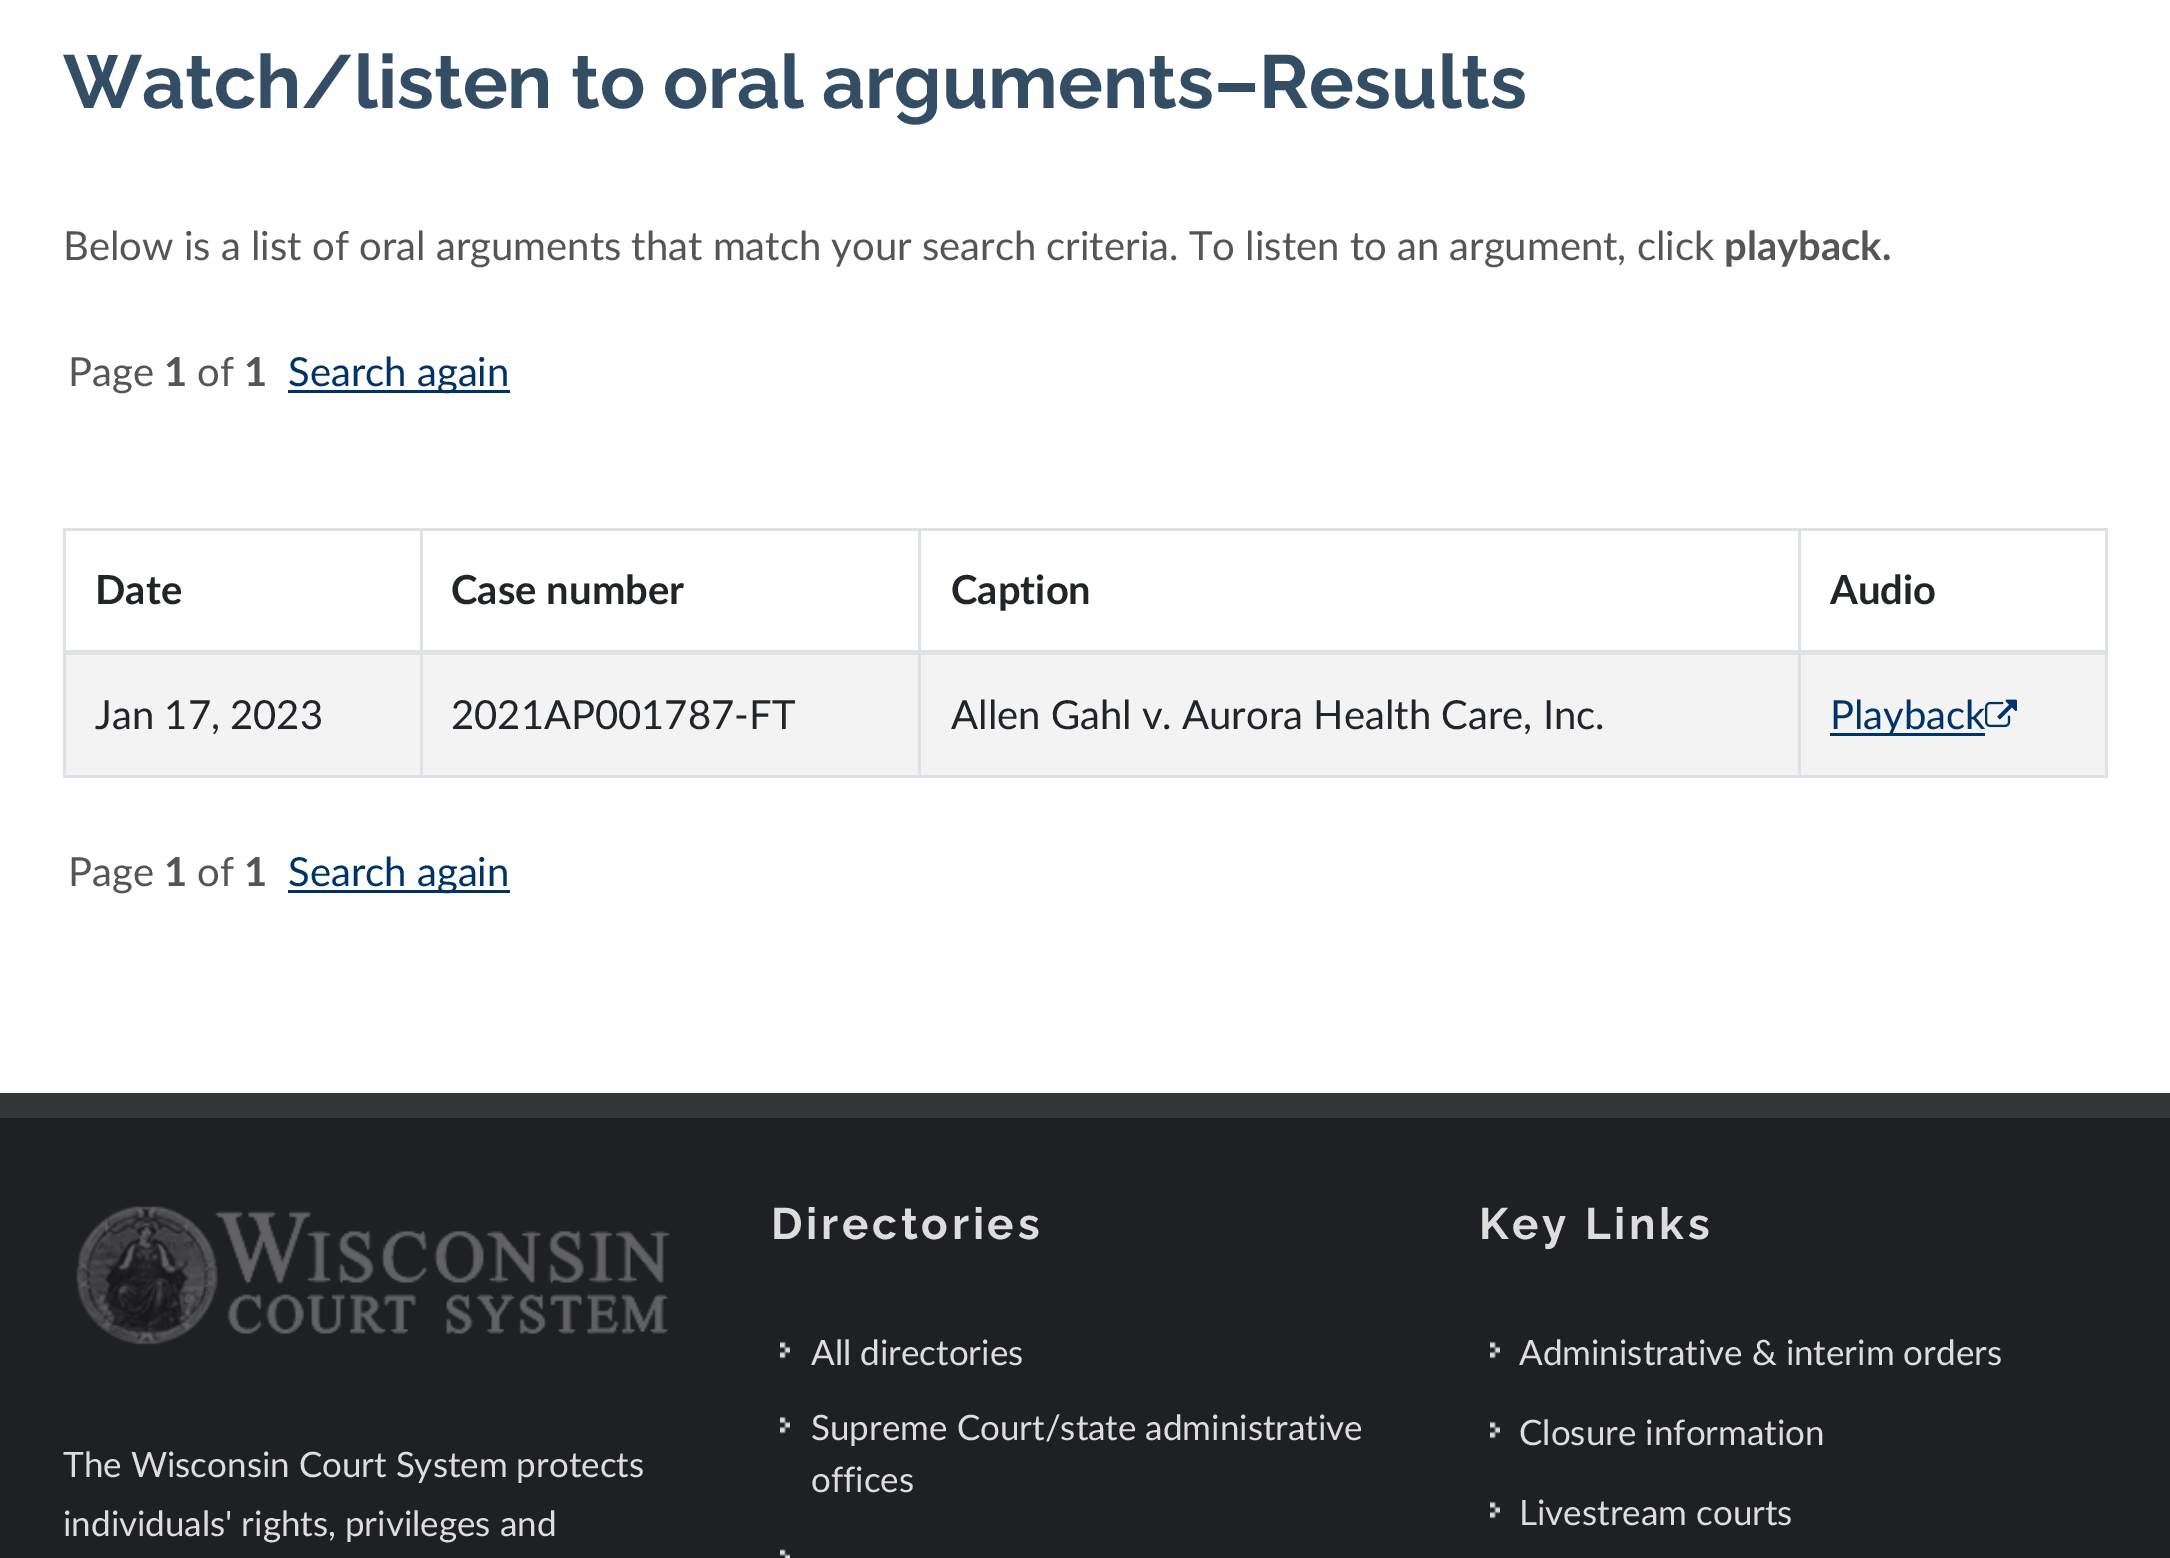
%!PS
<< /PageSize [2170 1558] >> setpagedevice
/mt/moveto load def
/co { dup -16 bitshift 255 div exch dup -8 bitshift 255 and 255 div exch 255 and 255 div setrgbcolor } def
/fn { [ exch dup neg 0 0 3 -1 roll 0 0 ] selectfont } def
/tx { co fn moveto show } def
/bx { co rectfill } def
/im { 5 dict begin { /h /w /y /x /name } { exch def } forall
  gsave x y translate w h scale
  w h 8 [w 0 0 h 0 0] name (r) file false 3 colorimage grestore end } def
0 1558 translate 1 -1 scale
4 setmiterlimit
0 0 2170 1558 16#FFFFFF bx
288 390 222 3 16#003366 bx
1798 528 310 3 16#DEE2E6 bx
66 655 2039 120 16#F3F3F3 bx
2105 650 3 128 16#DEE2E6 bx
1798 775 310 3 16#DEE2E6 bx
1798 650 3 128 16#DEE2E6 bx
1798 528 3 125 16#DEE2E6 bx
918 528 882 3 16#DEE2E6 bx
918 775 882 3 16#DEE2E6 bx
918 650 3 128 16#DEE2E6 bx
918 528 3 125 16#DEE2E6 bx
420 528 500 3 16#DEE2E6 bx
420 775 500 3 16#DEE2E6 bx
420 650 3 128 16#DEE2E6 bx
420 528 3 125 16#DEE2E6 bx
63 528 360 3 16#DEE2E6 bx
63 775 360 3 16#DEE2E6 bx
63 650 3 128 16#DEE2E6 bx
63 528 3 125 16#DEE2E6 bx
2105 528 3 125 16#DEE2E6 bx
63 650 2045 5 16#DEE2E6 bx
1830 733 155 3 16#003366 bx
288 890 222 3 16#003366 bx
0 1118 2170 440 16#1F2024 bx
0 1093 2170 25 16#35363A bx
(media/2.raw) 76 1206 594 139 im
(media/3.raw) 780 1341 10 18 im
(media/3.raw) 780 1416 10 18 im
(media/4.raw) 780 1549 10 9 im
(media/3.raw) 1490 1341 10 18 im
(media/3.raw) 1490 1421 10 18 im
(media/3.raw) 1490 1501 10 18 im
(Watch/listen to oral arguments–Results) 63 108 /Raleway-Bold 75 16#334D64 tx
(Below is a list of oral arguments that match your search criteria. To listen to an argument, click) 63 260 /Lato-Regular 40 16#555555 tx
(playback.) 1724 260 /Lato-Bold 40 16#555555 tx
(Page) 68 386 /Lato-Regular 40 16#555555 tx
(1) 164 386 /Lato-Bold 40 16#555555 tx
(of) 197 386 /Lato-Regular 40 16#555555 tx
(1) 244 386 /Lato-Bold 40 16#555555 tx
(Search again) 288 386 /Lato-Regular 40 16#003366 tx
(Date) 95 604 /Lato-Bold 40 16#212529 tx
(Case number) 451 604 /Lato-Bold 40 16#212529 tx
(Caption) 951 604 /Lato-Bold 40 16#212529 tx
(Audio) 1830 604 /Lato-Bold 40 16#212529 tx
(Jan 17, 2023) 95 729 /Lato-Regular 40 16#212529 tx
(2021AP001787-FT) 451 729 /Lato-Regular 40 16#212529 tx
(Allen Gahl v. Aurora Health Care, Inc.) 951 729 /Lato-Regular 40 16#212529 tx
(Playback) 1830 729 /Lato-Regular 40 16#003366 tx
(media/1.raw) 1985 699 32 29 im
(Page) 68 886 /Lato-Regular 40 16#555555 tx
(1) 164 886 /Lato-Bold 40 16#555555 tx
(of) 197 886 /Lato-Regular 40 16#555555 tx
(1) 244 886 /Lato-Bold 40 16#555555 tx
(Search again) 288 886 /Lato-Regular 40 16#003366 tx
(The Wisconsin Court System protects) 63 1477 /Lato-Regular 35 16#DDDDDD tx
(individuals' rights, privileges and) 63 1536 /Lato-Regular 35 16#DDDDDD tx
/Raleway-Bold 44 fn
771 1239 mt 3.75 0 (Directories) ashow
(All directories) 811 1365 /Lato-Regular 35 16#DDDDDD tx
(Supreme Court/state administrative) 811 1440 /Lato-Regular 35 16#DDDDDD tx
(offices) 811 1492 /Lato-Regular 35 16#DDDDDD tx
/Raleway-Bold 44 fn
1479 1239 mt 3.75 0 (Key Links) ashow
(Administrative & interim orders) 1519 1365 /Lato-Regular 35 16#DDDDDD tx
(Closure information) 1519 1445 /Lato-Regular 35 16#DDDDDD tx
(Livestream courts) 1519 1525 /Lato-Regular 35 16#DDDDDD tx
showpage
